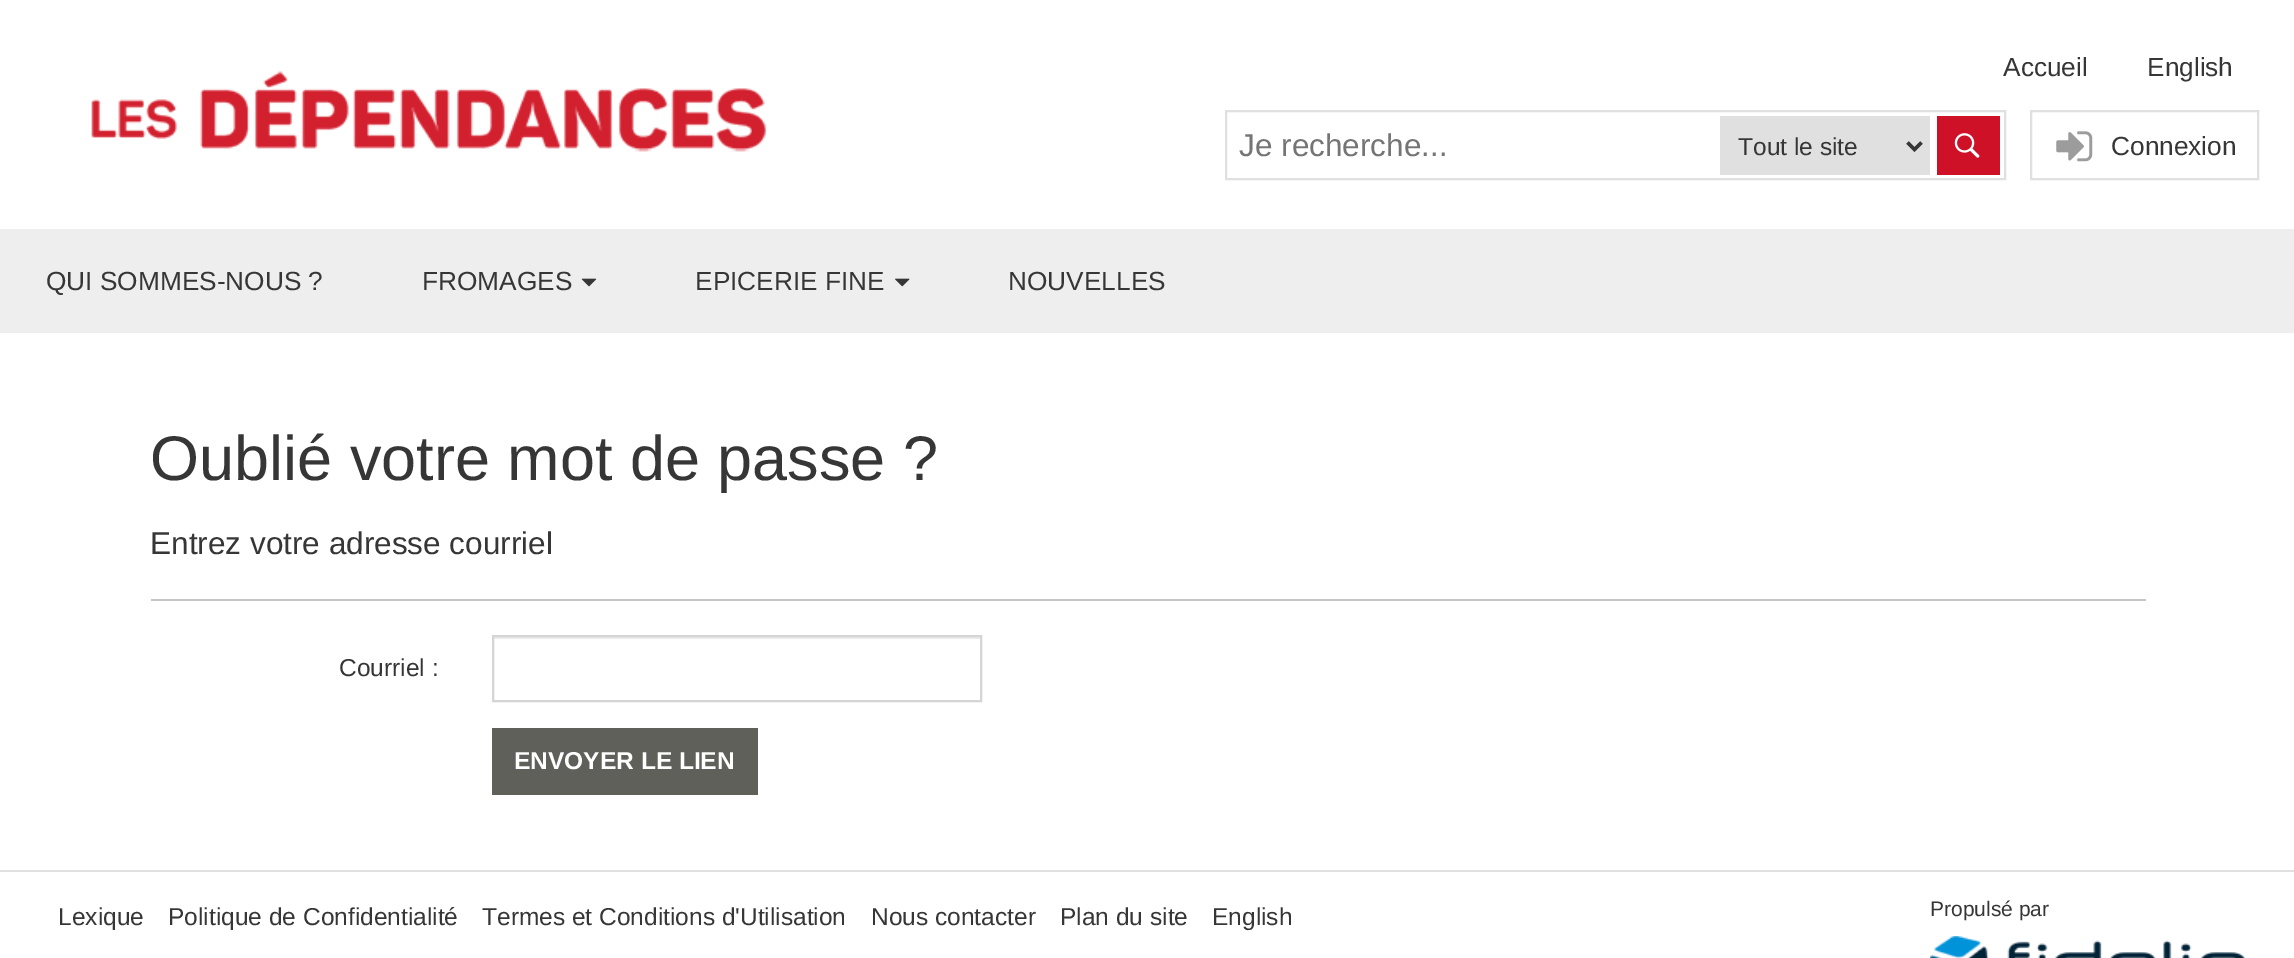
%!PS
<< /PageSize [2294 958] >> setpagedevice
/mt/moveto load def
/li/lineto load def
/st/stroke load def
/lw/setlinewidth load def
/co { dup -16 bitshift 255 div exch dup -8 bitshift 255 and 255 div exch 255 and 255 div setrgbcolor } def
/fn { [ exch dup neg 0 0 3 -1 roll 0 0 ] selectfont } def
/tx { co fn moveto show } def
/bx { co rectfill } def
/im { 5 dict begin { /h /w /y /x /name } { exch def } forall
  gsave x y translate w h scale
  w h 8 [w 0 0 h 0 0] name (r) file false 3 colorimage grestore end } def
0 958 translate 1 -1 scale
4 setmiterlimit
0 0 2294 958 16#FFFFFF bx
(media/1.raw) 91 71 676 81 im
16#E0E0E0 co
2 lw
1226 111 779 68 rectstroke
1720 116 210 59 16#E0E0E0 bx
16#363636 co
3.5 lw
1907.5 142.5 mt 1914.5 149.5 li 1921.5 142.5 li st
1937 116 63 59 16#CE1126 bx
(media/2.raw) 1954 133 26 25 im
16#E0E0E0 co
2 lw
2031 111 227 68 rectstroke
(media/3.raw) 2056 131 37 31 im
0 229 2294 104 16#EEEEEE bx
(media/4.raw) 581 278 16 9 im
(media/5.raw) 895 278 15 9 im
151 599 1995 2 16#C5C5C5 bx
494 637 486 2 16#ECECEC bx
16#D5D5D5 co
493 636 488 65 rectstroke
492 728 266 67 16#60605B bx
0 870 2294 2 16#E0E0E0 bx
(media/6.raw) 1930 936 316 22 im
(Accueil) 2003 76 /LiberationSans-Regular 26.25 16#363636 tx
(English) 2147 76 /LiberationSans-Regular 26.25 16#363636 tx
(Je recherche...) 1239 156 /LiberationSans-Regular 31.5 16#757575 tx
(Tout le site) 1738 155 /LiberationSans-Regular 24.5 16#363636 tx
(Connexion) 2111 155 /LiberationSans-Regular 26.25 16#363636 tx
(QUI SOMMES-NOUS ?) 46 290 /LiberationSans-Regular 26.25 16#363636 tx
(FROMAGES) 422 290 /LiberationSans-Regular 26.25 16#363636 tx
(EPICERIE FINE) 695 290 /LiberationSans-Regular 26.25 16#363636 tx
(NOUVELLES) 1008 290 /LiberationSans-Regular 26.25 16#363636 tx
(Oublié votre mot de passe ?) 150 480 /LiberationSans-Regular 63 16#363636 tx
(Entrez votre adresse courriel) 150 554 /LiberationSans-Regular 31.5 16#363636 tx
(Courriel :) 339 676 /LiberationSans-Regular 24.5 16#363636 tx
(ENVOYER LE LIEN) 514 769 /LiberationSans-Bold 24.5 16#FFFFFF tx
(Lexique) 58 925 /LiberationSans-Regular 24.5 16#363636 tx
(Politique de Confidentialité) 168 925 /LiberationSans-Regular 24.5 16#363636 tx
(Termes et Conditions d'Utilisation) 482 925 /LiberationSans-Regular 24.5 16#363636 tx
(Nous contacter) 871 925 /LiberationSans-Regular 24.5 16#363636 tx
(Plan du site) 1060 925 /LiberationSans-Regular 24.5 16#363636 tx
(English) 1212 925 /LiberationSans-Regular 24.5 16#363636 tx
(Propulsé par) 1930 916 /LiberationSans-Regular 21 16#363636 tx
showpage
